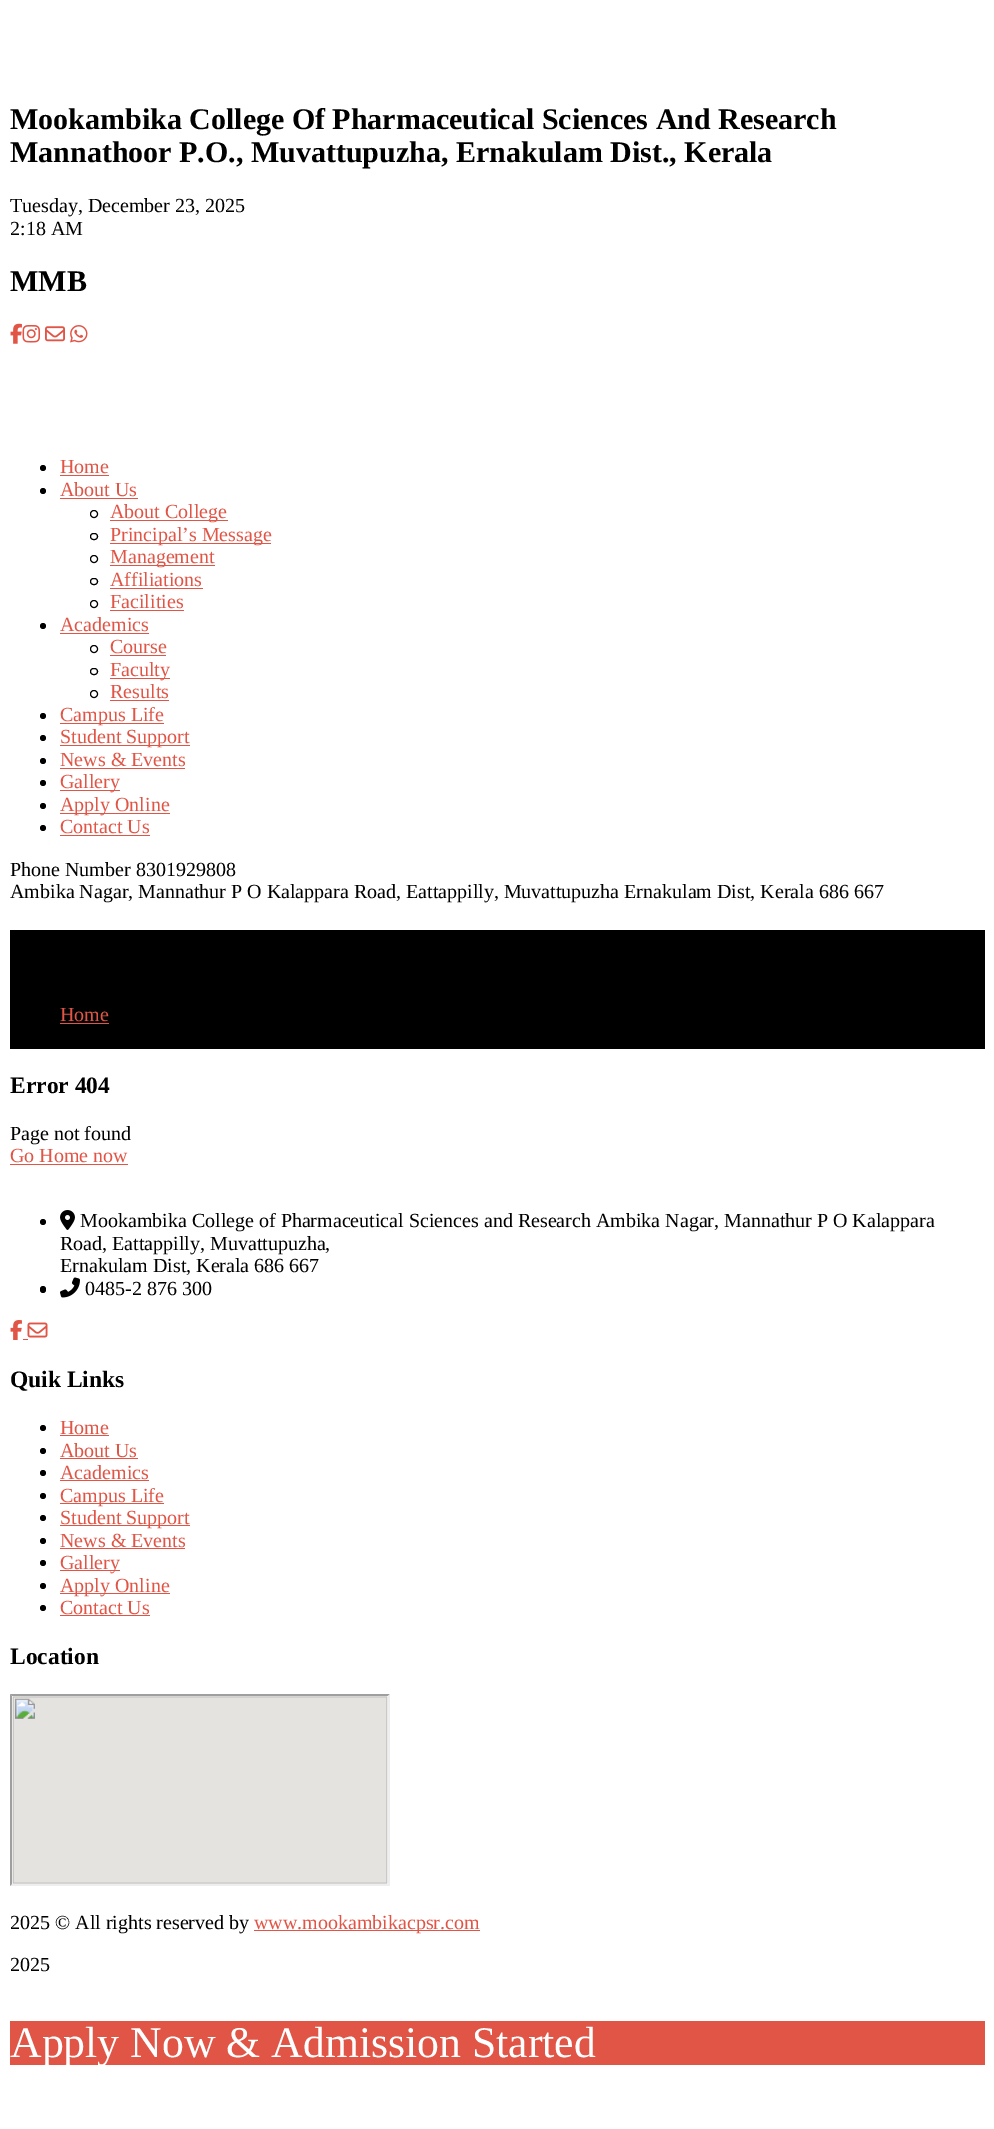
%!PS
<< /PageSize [994 2129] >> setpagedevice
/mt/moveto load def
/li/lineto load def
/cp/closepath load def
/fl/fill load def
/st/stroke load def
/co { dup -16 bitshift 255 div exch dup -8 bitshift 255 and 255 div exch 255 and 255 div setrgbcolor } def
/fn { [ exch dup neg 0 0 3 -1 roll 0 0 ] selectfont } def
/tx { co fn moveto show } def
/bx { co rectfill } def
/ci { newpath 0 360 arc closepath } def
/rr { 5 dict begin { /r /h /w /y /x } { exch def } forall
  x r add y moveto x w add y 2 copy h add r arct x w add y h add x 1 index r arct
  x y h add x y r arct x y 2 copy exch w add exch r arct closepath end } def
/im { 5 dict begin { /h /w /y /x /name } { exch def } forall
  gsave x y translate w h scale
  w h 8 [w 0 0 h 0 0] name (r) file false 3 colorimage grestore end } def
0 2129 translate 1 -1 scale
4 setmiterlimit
0 0 994 2129 16#FFFFFF bx
(media/1.raw) 10 323 12 21 im
(media/2.raw) 22 325 18 18 im
(media/3.raw) 45 326 20 16 im
(media/4.raw) 70 325 18 18 im
16#000000 co
43 468 3 ci fl
60 475 49 1 16#E15546 bx
16#000000 co
43 491 3 ci fl
60 498 78 1 16#E15546 bx
16#000000 co
94 514 3.5 ci st
110 520 118 1 16#E15546 bx
16#000000 co
90.5 533.5 7 6 3 rr st
110 543 161 1 16#E15546 bx
16#000000 co
94 559 3.5 ci st
110 565 105 1 16#E15546 bx
16#000000 co
90.5 578.5 7 6 3 rr st
110 588 93 1 16#E15546 bx
16#000000 co
94 604 3.5 ci st
110 610 74 1 16#E15546 bx
16#000000 co
43 626 3 ci fl
60 633 89 1 16#E15546 bx
16#000000 co
94 649 3.5 ci st
110 655 56 1 16#E15546 bx
16#000000 co
90.5 668.5 7 6 3 rr st
110 678 60 1 16#E15546 bx
16#000000 co
94 694 3.5 ci st
110 700 59 1 16#E15546 bx
16#000000 co
43 716 3 ci fl
60 723 104 1 16#E15546 bx
16#000000 co
43 738 3 ci fl
60 745 130 1 16#E15546 bx
16#000000 co
43 761 3 ci fl
60 768 125 1 16#E15546 bx
16#000000 co
43 783 3 ci fl
60 790 60 1 16#E15546 bx
16#000000 co
43 806 3 ci fl
60 813 110 1 16#E15546 bx
16#000000 co
43 828 3 ci fl
60 835 90 1 16#E15546 bx
10 930 975 119 16#000000 bx
60 1023 49 1 16#E15546 bx
10 1164 118 1 16#E15546 bx
16#000000 co
43 1222 3 ci fl
(media/5.raw) 60 1210 15 20 im
40 1286 6 7 3 rr fl
(media/6.raw) 60 1277 20 21 im
(media/7.raw) 10 1320 12 20 im
23 1339 5 1 16#E15546 bx
(media/8.raw) 27 1322 21 16 im
16#000000 co
43 1428 3 ci fl
60 1435 49 1 16#E15546 bx
16#000000 co
43 1451 3 ci fl
60 1458 78 1 16#E15546 bx
16#000000 co
43 1473 3 ci fl
60 1480 89 1 16#E15546 bx
16#000000 co
43 1496 3 ci fl
60 1503 104 1 16#E15546 bx
16#000000 co
43 1518 3 ci fl
60 1525 130 1 16#E15546 bx
16#000000 co
43 1541 3 ci fl
60 1548 125 1 16#E15546 bx
16#000000 co
43 1563 3 ci fl
60 1570 60 1 16#E15546 bx
16#000000 co
43 1586 3 ci fl
60 1593 110 1 16#E15546 bx
16#000000 co
43 1608 3 ci fl
60 1615 90 1 16#E15546 bx
16#9F9F9F co
10 1694 mt 390 1694 li 388 1696 li 12 1696 li cp fl
16#EEEEEE co
390 1694 mt 390 1886 li 388 1884 li 388 1696 li cp fl
390 1886 mt 10 1886 li 12 1884 li 388 1884 li cp fl
16#9F9F9F co
10 1886 mt 10 1694 li 12 1696 li 12 1884 li cp fl
(media/9.raw) 12 1696 376 188 im
254 1930 226 1 16#E15546 bx
10 2021 975 44 16#E15546 bx
(Mookambika College Of Pharmaceutical Sciences And Research) 10 129 /LiberationSerif-Bold 30 16#000000 tx
(Mannathoor P.O., Muvattupuzha, Ernakulam Dist., Kerala) 10 162 /LiberationSerif-Bold 30 16#000000 tx
(Tuesday, December 23, 2025) 10 212 /LiberationSerif-Regular 20 16#000000 tx
(2:18 AM) 10 235 /LiberationSerif-Regular 20 16#000000 tx
(MMB) 10 291 /LiberationSerif-Bold 30 16#000000 tx
(Home) 60 473 /LiberationSerif-Regular 20 16#E15546 tx
(About Us) 60 496 /LiberationSerif-Regular 20 16#E15546 tx
(About College) 110 518 /LiberationSerif-Regular 20 16#E15546 tx
(Principal’s Message) 110 541 /LiberationSerif-Regular 20 16#E15546 tx
(Management) 110 563 /LiberationSerif-Regular 20 16#E15546 tx
(Affiliations) 110 586 /LiberationSerif-Regular 20 16#E15546 tx
(Facilities) 110 608 /LiberationSerif-Regular 20 16#E15546 tx
(Academics) 60 631 /LiberationSerif-Regular 20 16#E15546 tx
(Course) 110 653 /LiberationSerif-Regular 20 16#E15546 tx
(Faculty) 110 676 /LiberationSerif-Regular 20 16#E15546 tx
(Results) 110 698 /LiberationSerif-Regular 20 16#E15546 tx
(Campus Life) 60 721 /LiberationSerif-Regular 20 16#E15546 tx
(Student Support) 60 743 /LiberationSerif-Regular 20 16#E15546 tx
(News & Events) 60 766 /LiberationSerif-Regular 20 16#E15546 tx
(Gallery) 60 788 /LiberationSerif-Regular 20 16#E15546 tx
(Apply Online) 60 811 /LiberationSerif-Regular 20 16#E15546 tx
(Contact Us) 60 833 /LiberationSerif-Regular 20 16#E15546 tx
(Phone Number 8301929808) 10 876 /LiberationSerif-Regular 20 16#000000 tx
(Ambika Nagar, Mannathur P O Kalappara Road, Eattappilly, Muvattupuzha Ernakulam Dist, Kerala 686 667) 10 898 /LiberationSerif-Regular 20 16#000000 tx
(Home) 60 1021 /LiberationSerif-Regular 20 16#E15546 tx
(Error 404) 10 1093 /LiberationSerif-Bold 23.5 16#000000 tx
(Page not found) 10 1140 /LiberationSerif-Regular 20 16#000000 tx
(Go Home now) 10 1162 /LiberationSerif-Regular 20 16#E15546 tx
(Mookambika College of Pharmaceutical Sciences and Research Ambika Nagar, Mannathur P O Kalappara) 80 1227 /LiberationSerif-Regular 20 16#000000 tx
(Road, Eattappilly, Muvattupuzha,) 60 1250 /LiberationSerif-Regular 20 16#000000 tx
(Ernakulam Dist, Kerala 686 667) 60 1272 /LiberationSerif-Regular 20 16#000000 tx
(0485-2 876 300) 85 1295 /LiberationSerif-Regular 20 16#000000 tx
(Quik Links) 10 1387 /LiberationSerif-Bold 23.5 16#000000 tx
(Home) 60 1434 /LiberationSerif-Regular 20 16#E15546 tx
(About Us) 60 1457 /LiberationSerif-Regular 20 16#E15546 tx
(Academics) 60 1479 /LiberationSerif-Regular 20 16#E15546 tx
(Campus Life) 60 1502 /LiberationSerif-Regular 20 16#E15546 tx
(Student Support) 60 1524 /LiberationSerif-Regular 20 16#E15546 tx
(News & Events) 60 1547 /LiberationSerif-Regular 20 16#E15546 tx
(Gallery) 60 1569 /LiberationSerif-Regular 20 16#E15546 tx
(Apply Online) 60 1592 /LiberationSerif-Regular 20 16#E15546 tx
(Contact Us) 60 1614 /LiberationSerif-Regular 20 16#E15546 tx
(Location) 10 1664 /LiberationSerif-Bold 23.5 16#000000 tx
(2025 © All rights reserved by) 10 1929 /LiberationSerif-Regular 20 16#000000 tx
(www.mookambikacpsr.com) 254 1929 /LiberationSerif-Regular 20 16#E15546 tx
(2025) 10 1971 /LiberationSerif-Regular 20 16#000000 tx
(Apply Now & Admission Started) 10 2057 /LiberationSerif-Regular 43.75 16#FFFFFF tx
showpage
